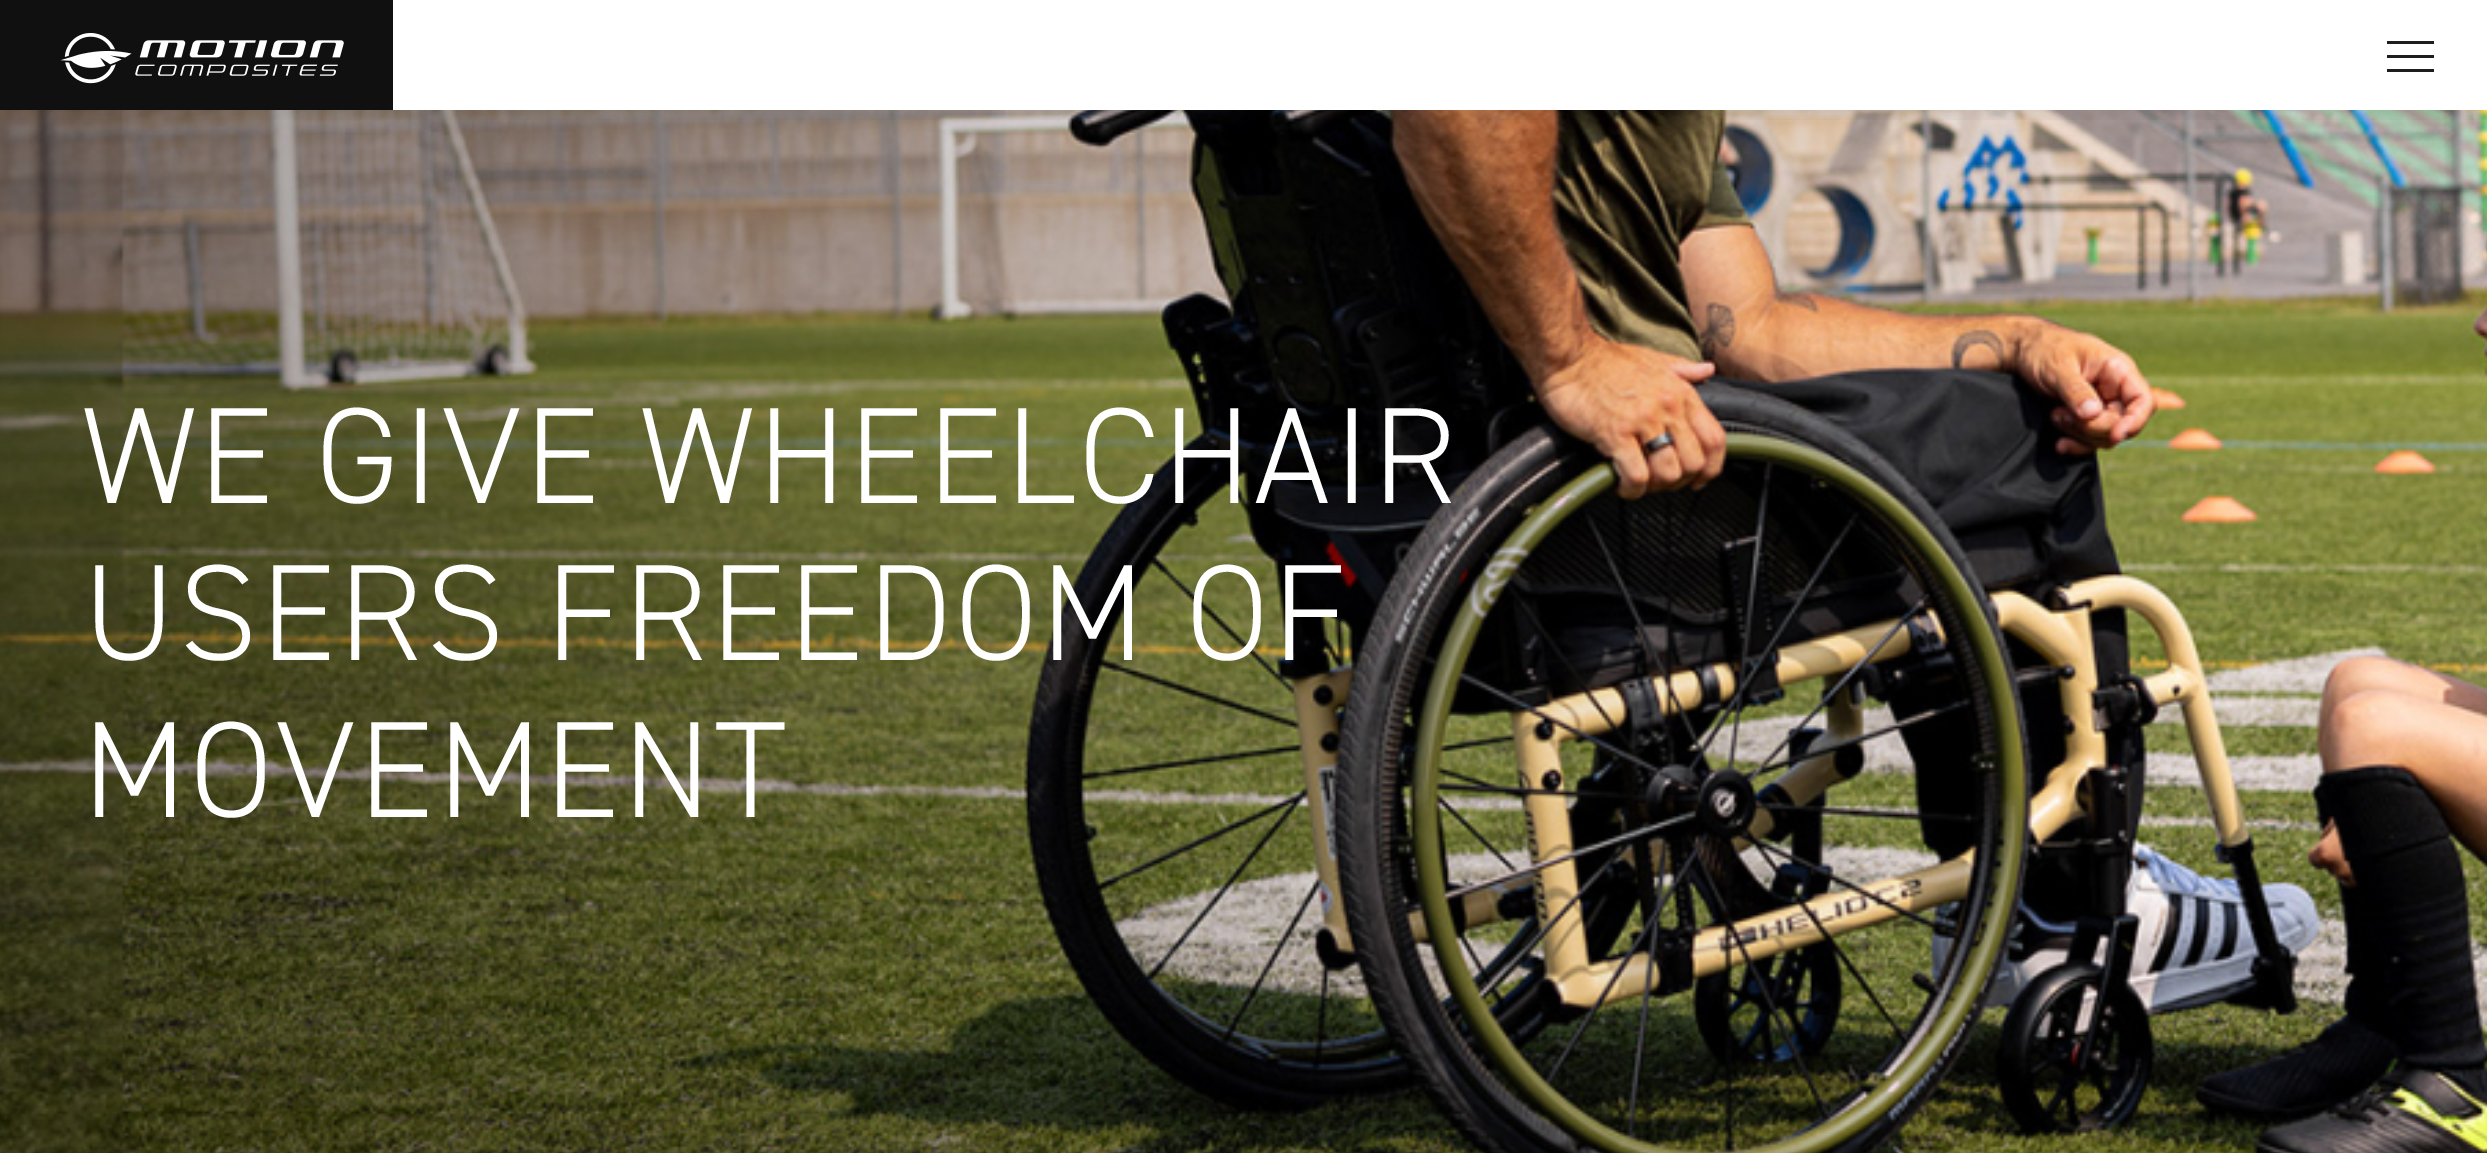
%!PS
<< /PageSize [2487 1153] /PageUsesTransparency true >> setpagedevice
/mt/moveto load def
/gs/gsave load def
/gr/grestore load def
/co { dup -16 bitshift 255 div exch dup -8 bitshift 255 and 255 div exch 255 and 255 div setrgbcolor } def
/fn { [ exch dup neg 0 0 3 -1 roll 0 0 ] selectfont } def
/bx { co rectfill } def
/al { dup .setfillconstantalpha .setstrokeconstantalpha } def
/rr { 5 dict begin { /r /h /w /y /x } { exch def } forall
  x r add y moveto x w add y 2 copy h add r arct x w add y h add x 1 index r arct
  x y h add x y r arct x y 2 copy exch w add exch r arct closepath end } def
/sh { 12 dict begin { /a /b /q /h /w /y /x } { exch def } forall gsave /was 0 def
  9 -2 -9 { dup b mul 4 div /e exch def 1 sub .425 mul 2.718 exch exp 1 add a .99 .min exch div /now exch def
    1 1 now sub 1 was sub div sub al /was now def
    w h .min e 2 mul add 0 gt { x e sub y e sub w e 2 mul add h e 2 mul add
      q e add b .6 mul add w h .min 2 div e add .min 0 .max rr fill } if } for grestore end } def
/im { 5 dict begin { /h /w /y /x /name } { exch def } forall
  gsave x y translate w h scale
  w h 8 [w 0 0 h 0 0] name (r) file false 3 colorimage grestore end } def
0 .pushpdf14devicefilter
0 1153 translate 1 -1 scale
4 setmiterlimit
0 0 2487 1153 16#FFFFFF bx
(media/2.raw) 0 110 2487 1043 im
gs
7 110 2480 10 rectclip
16#000000 co
8 8 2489 110 0 7 .05 sh
gr
0 0 393 110 16#101010 bx
(media/1.raw) 60 33 284 51 im
2387 41 47 3 16#1D1D1B bx
2387 55 47 3 16#1D1D1B bx
2387 69 47 3 16#1D1D1B bx
/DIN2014-Light 137.5 fn
16#FFFFFF co
83 503 mt 3.8 0 (WE GIVE WHEELCHAIR) ashow
83 660 mt 3.8 0 (USERS FREEDOM OF) ashow
83 817 mt 3.8 0 (MOVEMENT) ashow
.poppdf14devicefilter showpage
